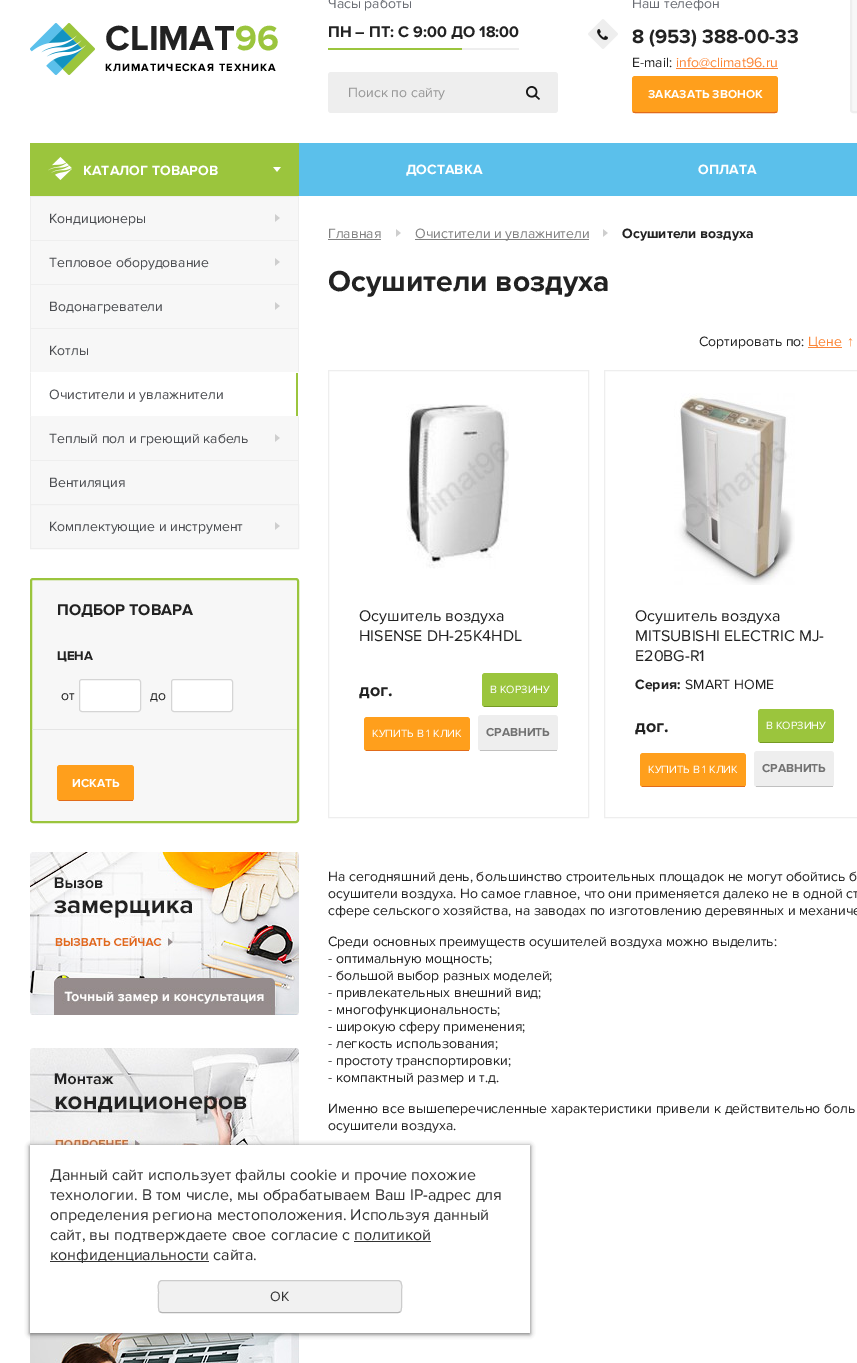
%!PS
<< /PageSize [857 1363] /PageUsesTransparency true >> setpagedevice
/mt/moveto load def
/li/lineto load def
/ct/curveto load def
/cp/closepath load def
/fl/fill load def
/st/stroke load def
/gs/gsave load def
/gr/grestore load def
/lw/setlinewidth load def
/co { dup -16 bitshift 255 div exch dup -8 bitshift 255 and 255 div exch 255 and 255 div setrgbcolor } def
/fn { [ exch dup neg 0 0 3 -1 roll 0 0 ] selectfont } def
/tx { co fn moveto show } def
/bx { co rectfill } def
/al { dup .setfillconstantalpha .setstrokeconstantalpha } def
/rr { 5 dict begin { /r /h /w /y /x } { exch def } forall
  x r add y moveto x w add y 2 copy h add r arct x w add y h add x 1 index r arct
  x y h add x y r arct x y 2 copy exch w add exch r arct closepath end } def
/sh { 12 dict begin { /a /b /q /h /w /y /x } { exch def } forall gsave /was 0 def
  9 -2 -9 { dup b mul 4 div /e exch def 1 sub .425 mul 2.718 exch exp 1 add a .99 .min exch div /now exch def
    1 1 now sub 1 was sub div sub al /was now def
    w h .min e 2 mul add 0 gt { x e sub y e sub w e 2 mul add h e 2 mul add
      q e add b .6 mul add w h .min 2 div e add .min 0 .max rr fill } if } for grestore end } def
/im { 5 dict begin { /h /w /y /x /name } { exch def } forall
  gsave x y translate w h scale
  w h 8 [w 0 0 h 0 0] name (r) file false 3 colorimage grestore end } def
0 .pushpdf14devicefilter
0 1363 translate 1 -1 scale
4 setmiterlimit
0 0 857 1363 16#FFFFFF bx
(media/1.raw) 30 23 65 52 im
462 48 57 2 16#EEEEEE bx
328 48 134 2 16#9BC53D bx
16#EEEEEE co
328 72 230 41 3 rr fl
(media/2.raw) 526 86 14 14 im
(media/3.raw) 588 19 30 30 im
676 68 102 1 16#FB8739 bx
16#FF9F1C co
632 76 146 37 3 rr fl
16#E16B1A co
777 112 mt 775 112.5 li 635 112.5 li 633 112 li st
16#F7F7F7 co
851 -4 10 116 2 rr gs fl gr
16#EEEEEE co
2 lw
st
299 143 558 53 16#5BC0EB bx
30 143 269 53 16#9BC53D bx
(media/4.raw) 48 157 233 23 im
31 197 267 43 16#F7F7F7 bx
(media/5.raw) 275 214 5 8 im
30 196 269 1 16#EEEEEE bx
298 196 1 44 16#EEEEEE bx
30 196 1 44 16#EEEEEE bx
31 241 267 43 16#F7F7F7 bx
(media/5.raw) 275 258 5 8 im
30 240 269 1 16#EEEEEE bx
298 240 1 44 16#EEEEEE bx
30 240 1 44 16#EEEEEE bx
31 285 267 43 16#F7F7F7 bx
(media/5.raw) 275 302 5 8 im
30 284 269 1 16#EEEEEE bx
298 284 1 44 16#EEEEEE bx
30 284 1 44 16#EEEEEE bx
31 329 267 43 16#F7F7F7 bx
30 328 269 1 16#EEEEEE bx
298 328 1 44 16#EEEEEE bx
30 328 1 44 16#EEEEEE bx
30 416 mt 30 372 li 31 373 li 31 416 li cp fl
296 373 2 43 16#9BC53D bx
30 416 269 44 16#F7F7F7 bx
(media/5.raw) 275 434 5 8 im
16#EEEEEE co
299 416 mt 299 460 li 298 460 li 298 417 li cp fl
30 460 mt 30 416 li 31 417 li 31 460 li cp fl
31 461 267 43 16#F7F7F7 bx
30 460 269 1 16#EEEEEE bx
298 460 1 44 16#EEEEEE bx
30 460 1 44 16#EEEEEE bx
31 505 267 43 16#F7F7F7 bx
(media/5.raw) 275 522 5 8 im
16#EEEEEE co
1 lw
30.5 504.5 268 44 rectstroke
16#F7F7F7 co
31 579 267 243 2 rr gs fl gr
16#9BC53D co
2 lw
st
32 729 265 1 16#E5E5E5 bx
16#FFFFFF co
79.5 679.5 61 32 2.5 rr gs fl gr
16#D5D5D5 co
1 lw
st
16#FFFFFF co
171.5 679.5 61 32 2.5 rr gs fl gr
16#D5D5D5 co
st
16#FF9F1C co
57 765 77 36 3 rr fl
59 800 74 1 16#E16B1A bx
(media/6.raw) 30 852 269 163 im
(media/7.raw) 30 1048 269 97 im
(media/8.raw) 30 1333 269 30 im
328 239 53 1 16#808080 bx
(media/9.raw) 396 229 5 8 im
415 239 174 1 16#808080 bx
(media/9.raw) 603 229 5 8 im
808 347 34 1 16#FB8739 bx
16#EEEEEE co
328.5 370.5 260 447 rectstroke
(media/10.raw) 406 404 103 165 im
16#9BC53D co
482 673 76 34 3 rr fl
484 706 73 1 16#759A23 bx
16#FF9F1C co
364 717 106 34 3 rr fl
366 750 103 1 16#E16B1A bx
16#EEEEEE co
478 715 80 36 3 rr fl
480 750 77 1 16#C0C0C0 bx
16#EEEEEE co
604.5 370.5 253 447 rectstroke
(media/11.raw) 674 393 121 192 im
16#9BC53D co
758 709 76 34 3 rr fl
760 742 73 1 16#759A23 bx
16#FF9F1C co
640 753 106 34 3 rr fl
642 786 103 1 16#E16B1A bx
16#EEEEEE co
754 751 80 36 3 rr fl
756 786 77 1 16#C0C0C0 bx
16#666666 co
30 1146 500 188 0 2.5 1 sh
30 1145 500 188 16#FFFFFF bx
354 1241 77 1 16#333333 bx
50 1261 159 1 16#333333 bx
16#F1F1F1 co
158 1280 244 33 4 rr fl
16#B3B3B3 co
400.5 1311.5 mt 400 1312 399 1312.5 398 1312.5 ct 162 1312.5 li 161 1312.5 160 1312 159.5 1311.5 ct st
16#CCCCCC co
159.5 1311.5 mt 157.5 1309 158.5 1295.5 158.5 1292.5 ct 158.5 1290 156.5 1280.5 162 1280.5 ct 398 1280.5 li 403.5 1280.5 401.5 1290 401.5 1292.5 ct 401.5 1295.5 402.5 1309 400.5 1311.5 ct st
(CLIMAT) 105 50 /ProximaNova-Bold 36 16#222222 tx
(96) 235 50 /ProximaNova-Bold 36 16#9BC53D tx
/ProximaNova-Bold 11 fn
16#000000 co
105 71 mt 1 0 (КЛИМАТИЧЕСКАЯ ТЕХНИКА) ashow
(Часы работы) 328 8 /ProximaNova-Regular 14 16#696C73 tx
(ПН – ПТ: С 9:00 ДО 18:00) 328 37 /ProximaNova-Bold 16 16#222222 tx
(Поиск по сайту) 348 97 /ProximaNova-Regular 14 16#969696 tx
(Наш телефон) 632 8 /ProximaNova-Regular 14 16#696C73 tx
(8 \(953\) 388-00-33) 632 43 /ProximaNova-Bold 20 16#222222 tx
(E-mail:) 632 67 /ProximaNova-Regular 14 16#222222 tx
(info@climat96.ru) 676 67 /ProximaNova-Regular 14 16#FB8739 tx
(ЗАКАЗАТЬ ЗВОНОК) 648 98 /ProximaNova-Bold 12 16#FFFFFF tx
(КАТАЛОГ ТОВАРОВ) 83 175 /ProximaNova-Bold 14 16#FFFFFF tx
(ДОСТАВКА) 406 174 /ProximaNova-Bold 14 16#FFFFFF tx
(ОПЛАТА) 698 174 /ProximaNova-Bold 14 16#FFFFFF tx
(Кондиционеры) 49 223 /ProximaNova-Regular 14 16#494B4F tx
(Тепловое оборудование) 49 267 /ProximaNova-Regular 14 16#494B4F tx
(Водонагреватели) 49 311 /ProximaNova-Regular 14 16#494B4F tx
(Котлы) 49 355 /ProximaNova-Regular 14 16#494B4F tx
(Очистители и увлажнители) 49 399 /ProximaNova-Regular 14 16#494B4F tx
(Теплый пол и греющий кабель) 49 443 /ProximaNova-Regular 14 16#494B4F tx
(Вентиляция) 49 487 /ProximaNova-Regular 14 16#494B4F tx
(Комплектующие и инструмент) 49 531 /ProximaNova-Regular 14 16#494B4F tx
(ПОДБОР ТОВАРА) 57 615 /ProximaNova-Bold 16 16#222222 tx
(ЦЕНА) 57 660 /ProximaNova-Bold 13 16#222222 tx
(от) 61 700 /ProximaNova-Regular 14 16#222222 tx
(до) 150 700 /ProximaNova-Regular 14 16#222222 tx
(ИСКАТЬ) 72 787 /ProximaNova-Bold 12 16#FFFFFF tx
(Главная) 328 238 /ProximaNova-Regular 14 16#808080 tx
(Очистители и увлажнители) 415 238 /ProximaNova-Regular 14 16#808080 tx
(Осушители воздуха) 622 238 /ProximaNova-Bold 14 16#222222 tx
(Осушители воздуха) 328 291 /ProximaNova-Bold 30 16#222222 tx
(Сортировать по:) 699 346 /ProximaNova-Regular 14 16#222222 tx
(Цене) 808 346 /ProximaNova-Regular 14 16#FB8739 tx
(↑) 847 346 /LiberationSerif-Bold 14 16#FB8739 tx
(Оcушитель воздуха) 359 621 /ProximaNova-Regular 16 16#222222 tx
(HISENSE DH-25K4HDL) 359 641 /ProximaNova-Regular 16 16#222222 tx
(дог.) 359 696 /ProximaNova-Bold 18 16#222222 tx
(В КОРЗИНУ) 490 693 /ProximaNova-Regular 11 16#FFFFFF tx
(КУПИТЬ В 1 КЛИК) 372 737 /ProximaNova-Regular 11 16#FFFFFF tx
(СРАВНИТЬ) 486 736 /ProximaNova-Bold 12 16#727272 tx
(Оcушитель воздуха) 635 621 /ProximaNova-Regular 16 16#222222 tx
(MITSUBISHI ELECTRIC MJ-) 635 641 /ProximaNova-Regular 16 16#222222 tx
(E20BG-R1) 635 661 /ProximaNova-Regular 16 16#222222 tx
(Серия:) 635 689 /ProximaNova-Bold 14 16#222222 tx
(SMART HOME) 685 689 /ProximaNova-Regular 14 16#222222 tx
(дог.) 635 732 /ProximaNova-Bold 18 16#222222 tx
(В КОРЗИНУ) 766 729 /ProximaNova-Regular 11 16#FFFFFF tx
(КУПИТЬ В 1 КЛИК) 648 773 /ProximaNova-Regular 11 16#FFFFFF tx
(СРАВНИТЬ) 762 772 /ProximaNova-Bold 12 16#727272 tx
(На сегодняшний день, большинство строительных площадок не могут обойтись б) 328 881 /ProximaNova-Regular 14 16#222222 tx
(осушители воздуха. Но самое главное, что они применяется далеко не в одной ст) 328 898 /ProximaNova-Regular 14 16#222222 tx
(сфере сельского хозяйства, на заводах по изготовлению деревянных и механиче) 328 915 /ProximaNova-Regular 14 16#222222 tx
(Среди основных преимуществ осушителей воздуха можно выделить:) 328 946 /ProximaNova-Regular 14 16#222222 tx
(- оптимальную мощность;) 328 963 /ProximaNova-Regular 14 16#222222 tx
(- большой выбор разных моделей;) 328 980 /ProximaNova-Regular 14 16#222222 tx
(- привлекательных внешний вид;) 328 997 /ProximaNova-Regular 14 16#222222 tx
(- многофункциональность;) 328 1014 /ProximaNova-Regular 14 16#222222 tx
(- широкую сферу применения;) 328 1031 /ProximaNova-Regular 14 16#222222 tx
(- легкость использования;) 328 1048 /ProximaNova-Regular 14 16#222222 tx
(- простоту транспортировки;) 328 1065 /ProximaNova-Regular 14 16#222222 tx
(- компактный размер и т.д.) 328 1082 /ProximaNova-Regular 14 16#222222 tx
(Именно все вышеперечисленные характеристики привели к действительно боль) 328 1113 /ProximaNova-Regular 14 16#222222 tx
(осушители воздуха.) 328 1130 /ProximaNova-Regular 14 16#222222 tx
(Данный сайт использует файлы cookie и прочие похожие) 50 1180 /ProximaNova-Regular 16 16#333333 tx
(технологии. В том числе, мы обрабатываем Ваш IP-адрес для) 50 1200 /ProximaNova-Regular 16 16#333333 tx
(определения региона местоположения. Используя данный) 50 1220 /ProximaNova-Regular 16 16#333333 tx
(сайт, вы подтверждаете свое согласие с политикой) 50 1240 /ProximaNova-Regular 16 16#333333 tx
(конфиденциальности сайта.) 50 1260 /ProximaNova-Regular 16 16#333333 tx
(OK) 270 1301 /ProximaNova-Regular 14 16#333333 tx
.poppdf14devicefilter showpage
